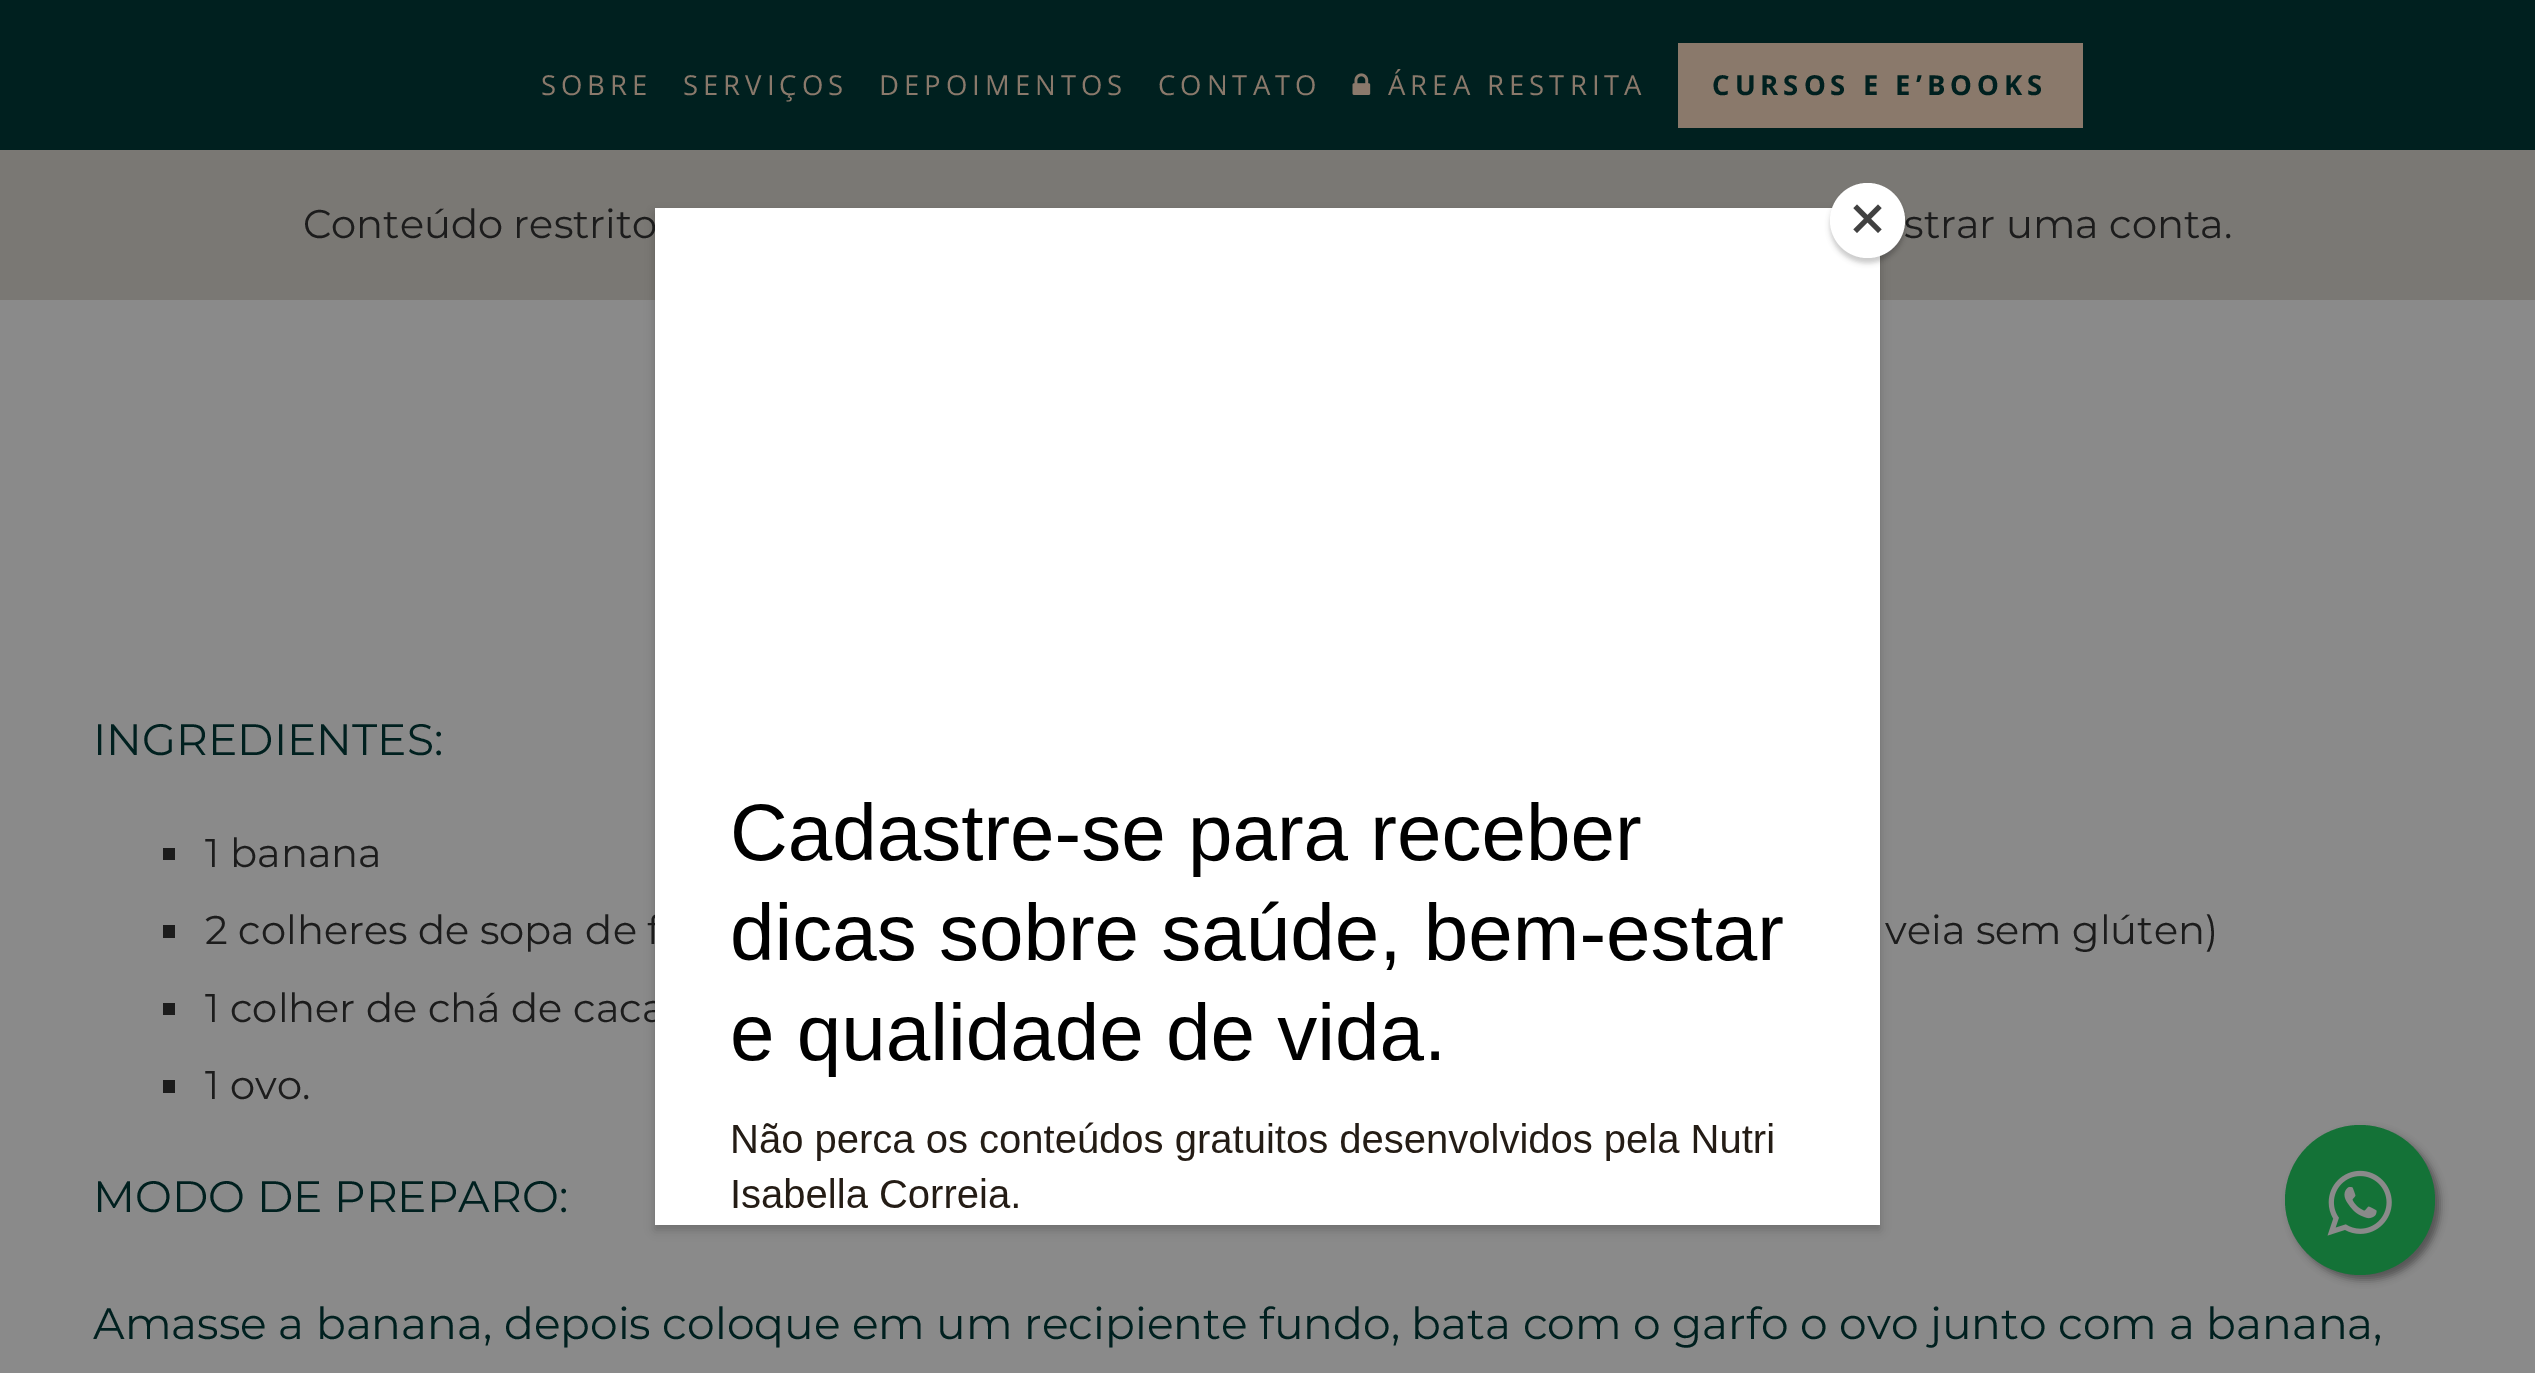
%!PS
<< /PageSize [2535 1373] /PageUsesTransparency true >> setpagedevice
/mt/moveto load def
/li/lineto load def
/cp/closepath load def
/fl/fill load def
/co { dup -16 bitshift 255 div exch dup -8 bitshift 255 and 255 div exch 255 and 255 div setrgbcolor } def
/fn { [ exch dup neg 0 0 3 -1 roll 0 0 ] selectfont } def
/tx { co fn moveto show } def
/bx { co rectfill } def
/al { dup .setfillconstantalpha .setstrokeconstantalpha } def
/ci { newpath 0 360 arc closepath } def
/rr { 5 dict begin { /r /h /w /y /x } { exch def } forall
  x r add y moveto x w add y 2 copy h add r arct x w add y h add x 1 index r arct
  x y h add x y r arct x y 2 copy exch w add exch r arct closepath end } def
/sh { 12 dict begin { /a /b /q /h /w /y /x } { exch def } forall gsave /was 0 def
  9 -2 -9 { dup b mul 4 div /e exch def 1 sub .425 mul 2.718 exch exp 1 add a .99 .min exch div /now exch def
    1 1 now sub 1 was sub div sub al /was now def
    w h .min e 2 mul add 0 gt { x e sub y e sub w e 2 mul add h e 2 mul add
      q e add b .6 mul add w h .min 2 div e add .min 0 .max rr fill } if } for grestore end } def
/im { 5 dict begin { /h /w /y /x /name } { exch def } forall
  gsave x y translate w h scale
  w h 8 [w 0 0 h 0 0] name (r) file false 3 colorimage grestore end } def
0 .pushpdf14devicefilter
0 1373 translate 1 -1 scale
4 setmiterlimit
0 0 2535 1373 16#8A8A8A bx
0 0 2535 150 16#00201F bx
(media/1.raw) 1352 73 19 22 im
1678 43 405 85 16#8A796B bx
0 150 2535 150 16#7A7874 bx
16#000000 co
655 213 1225 1017 0 5 .2 sh
163 848 12 12 16#1C1C1C bx
163 925 12 13 16#1C1C1C bx
163 1003 12 12 16#1C1C1C bx
163 1080 12 13 16#1C1C1C bx
16#535353 co
2290 1130 150 150 75 4 1 sh
16#147237 co
2360 1200 75 ci fl
(media/3.raw) 2327 1170 65 66 im
/OpenSans-Regular 27.5 fn
16#8A796B co
541 95 mt 5 0 (SOBRE) ashow
683 95 mt 5 0 (SERVIÇOS) ashow
879 95 mt 5 0 (DEPOIMENTOS) ashow
1158 95 mt 5 0 (CONTATO) ashow
1388 95 mt 5 0 (ÁREA RESTRITA) ashow
/OpenSans-Bold 27.5 fn
16#00201F co
1712 95 mt 5 0 (CURSOS E E’BOOKS) ashow
(Conteúdo restrito) 303 238 /Montserrat-Regular 40 16#1C1C1C tx
(strar uma conta.) 1904 238 /Montserrat-Regular 40 16#1C1C1C tx
(INGREDIENTES:) 93 755 /Montserrat-Regular 44 16#00201F tx
(1 banana) 205 867 /Montserrat-Regular 40 16#1C1C1C tx
(2 colheres de sopa de f) 205 944 /Montserrat-Regular 40 16#1C1C1C tx
(veia sem glúten\)) 1885 944 /Montserrat-Regular 40 16#1C1C1C tx
(1 colher de chá de caca) 205 1022 /Montserrat-Regular 40 16#1C1C1C tx
(media/2.raw) 655 208 1225 1017 im
16#000000 co
1830 188 75 75 37.5 2.5 .2 sh
16#FFFFFF co
1867.5 220.5 37.5 ci fl
16#414141 co
1878 204.5 mt 1881.5 208 li 1857 233 li 1853.5 229.5 li cp fl
1853.5 208 mt 1857 204.5 li 1881.5 229.5 li 1878 233 li cp fl
(1 ovo.) 205 1099 /Montserrat-Regular 40 16#1C1C1C tx
(MODO DE PREPARO:) 93 1212 /Montserrat-Regular 44 16#00201F tx
(Amasse a banana, depois coloque em um recipiente fundo, bata com o garfo o ovo junto com a banana,) 93 1339 /Montserrat-Regular 44 16#00201F tx
.poppdf14devicefilter showpage
